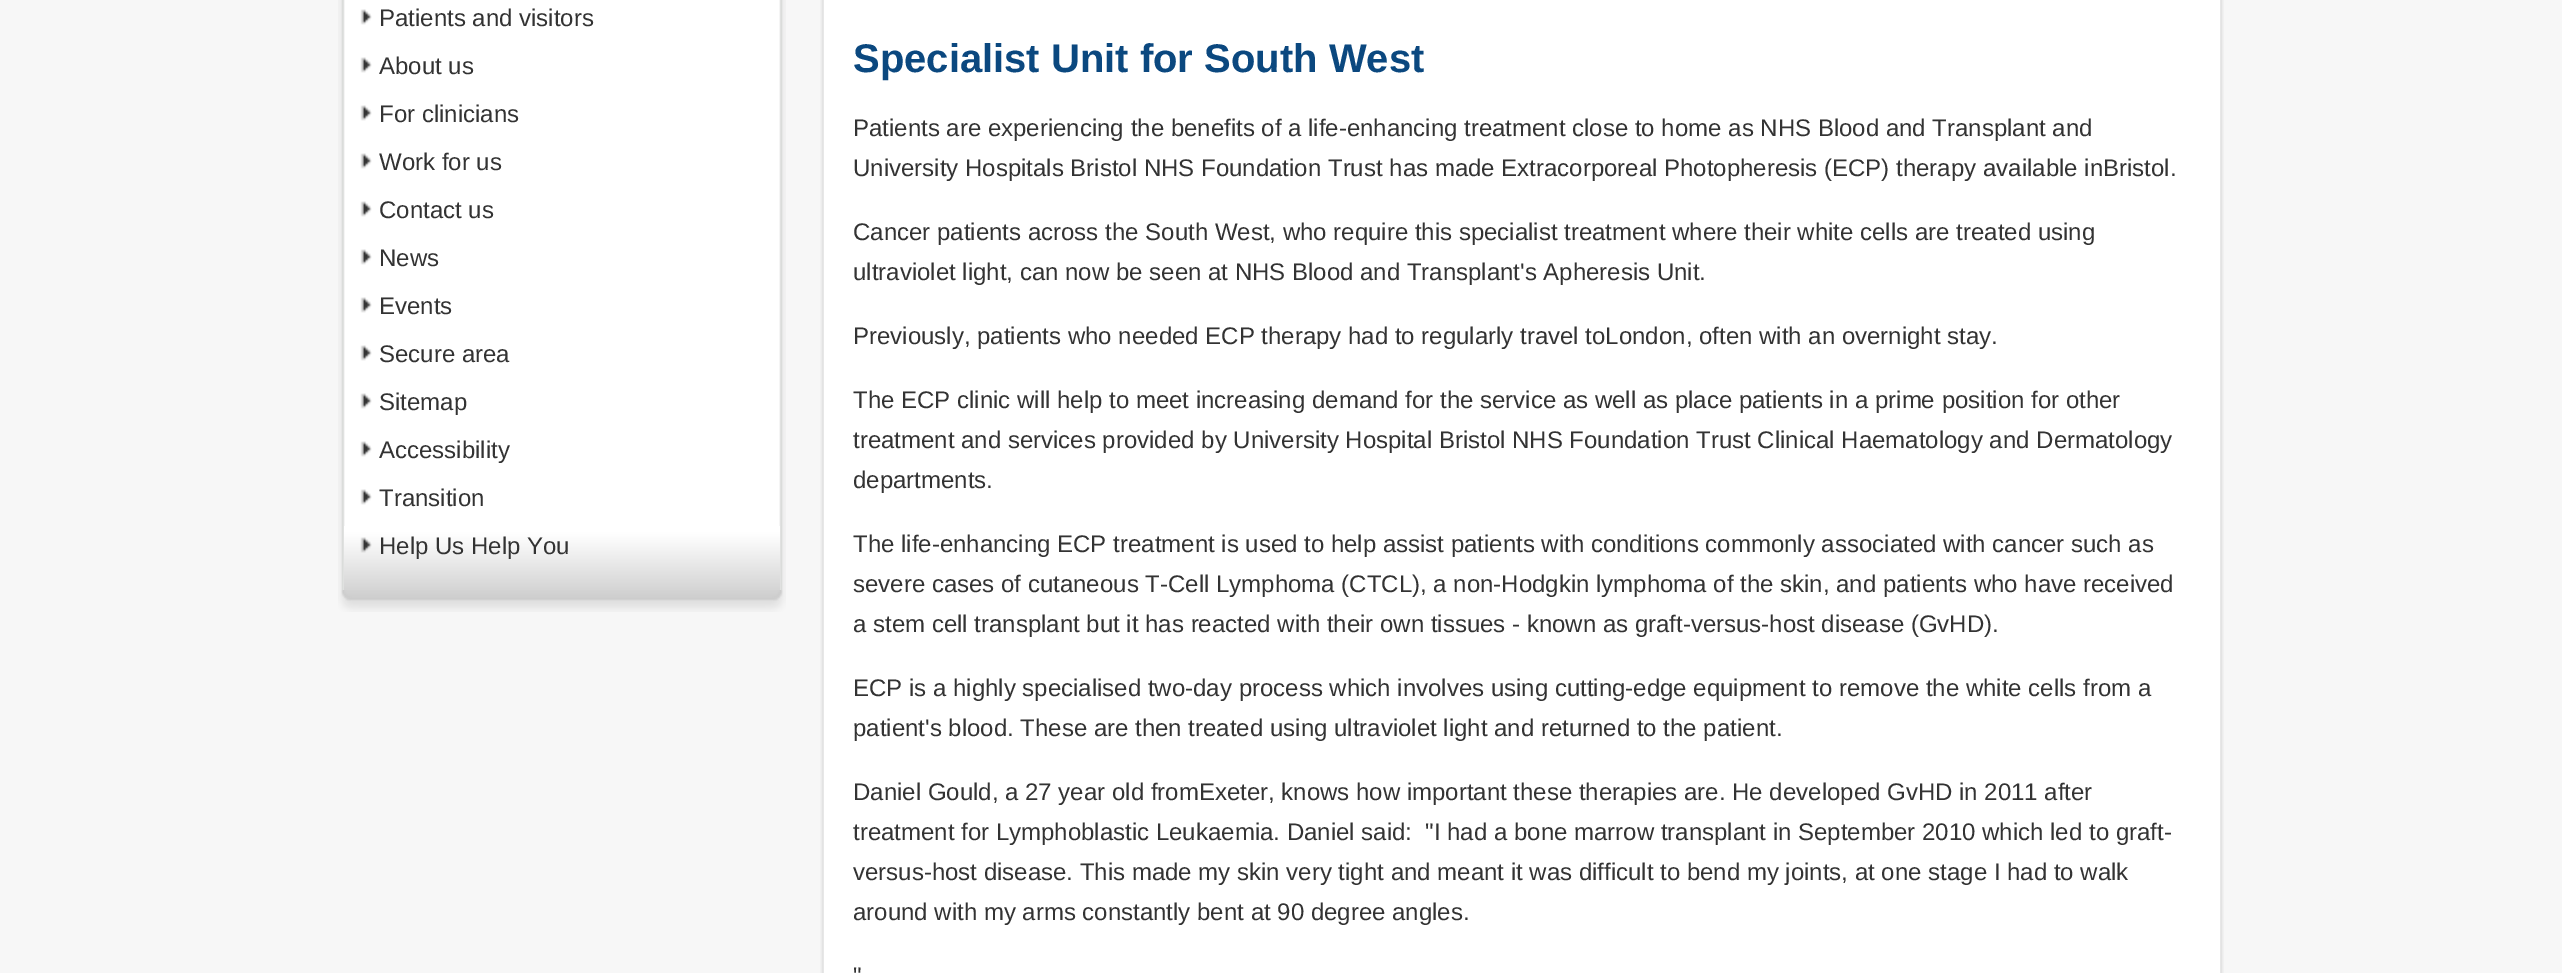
%!PS
<< /PageSize [2562 973] >> setpagedevice
/co { dup -16 bitshift 255 div exch dup -8 bitshift 255 and 255 div exch 255 and 255 div setrgbcolor } def
/fn { [ exch dup neg 0 0 3 -1 roll 0 0 ] selectfont } def
/tx { co fn moveto show } def
/bx { co rectfill } def
/im { 5 dict begin { /h /w /y /x /name } { exch def } forall
  gsave x y translate w h scale
  w h 8 [w 0 0 h 0 0] name (r) file false 3 colorimage grestore end } def
0 973 translate 1 -1 scale
4 setmiterlimit
0 0 2562 973 16#F7F7F7 bx
(media/1.raw) 338 0 448 590 im
(media/2.raw) 344 526 436 64 im
(media/3.raw) 360 9 12 16 im
(media/3.raw) 360 57 12 16 im
(media/3.raw) 360 105 12 16 im
(media/3.raw) 360 153 12 16 im
(media/3.raw) 360 201 12 16 im
(media/3.raw) 360 249 12 16 im
(media/3.raw) 360 297 12 16 im
(media/3.raw) 360 345 12 16 im
(media/3.raw) 360 393 12 16 im
(media/3.raw) 360 441 12 16 im
(media/3.raw) 360 489 12 16 im
(media/4.raw) 360 537 12 16 im
(media/5.raw) 338 590 448 22 im
(media/6.raw) 820 0 1404 973 im
824 0 1396 973 16#FFFFFF bx
(Patients and visitors) 379 26 /LiberationSans-Regular 24 16#333333 tx
(About us) 379 74 /LiberationSans-Regular 24 16#333333 tx
(For clinicians) 379 122 /LiberationSans-Regular 24 16#333333 tx
(Work for us) 379 170 /LiberationSans-Regular 24 16#333333 tx
(Contact us) 379 218 /LiberationSans-Regular 24 16#333333 tx
(News) 379 266 /LiberationSans-Regular 24 16#333333 tx
(Events) 379 314 /LiberationSans-Regular 24 16#333333 tx
(Secure area) 379 362 /LiberationSans-Regular 24 16#333333 tx
(Sitemap) 379 410 /LiberationSans-Regular 24 16#333333 tx
(Accessibility) 379 458 /LiberationSans-Regular 24 16#333333 tx
(Transition) 379 506 /LiberationSans-Regular 24 16#333333 tx
(Help Us Help You) 379 554 /LiberationSans-Regular 24 16#333333 tx
(Specialist Unit for South West) 853 72 /LiberationSans-Bold 40 16#0B487F tx
(Patients are experiencing the benefits of a life-enhancing treatment close to home as NHS Blood and Transplant and) 853 136 /LiberationSans-Regular 24 16#333333 tx
(University Hospitals Bristol NHS Foundation Trust has made Extracorporeal Photopheresis \(ECP\) therapy available inBristol.) 853 176 /LiberationSans-Regular 24 16#333333 tx
(Cancer patients across the South West, who require this specialist treatment where their white cells are treated using) 853 240 /LiberationSans-Regular 24 16#333333 tx
(ultraviolet light, can now be seen at NHS Blood and Transplant's Apheresis Unit.) 853 280 /LiberationSans-Regular 24 16#333333 tx
(Previously, patients who needed ECP therapy had to regularly travel toLondon, often with an overnight stay.) 853 344 /LiberationSans-Regular 24 16#333333 tx
(The ECP clinic will help to meet increasing demand for the service as well as place patients in a prime position for other) 853 408 /LiberationSans-Regular 24 16#333333 tx
(treatment and services provided by University Hospital Bristol NHS Foundation Trust Clinical Haematology and Dermatology) 853 448 /LiberationSans-Regular 24 16#333333 tx
(departments.) 853 488 /LiberationSans-Regular 24 16#333333 tx
(The life-enhancing ECP treatment is used to help assist patients with conditions commonly associated with cancer such as) 853 552 /LiberationSans-Regular 24 16#333333 tx
(severe cases of cutaneous T-Cell Lymphoma \(CTCL\), a non-Hodgkin lymphoma of the skin, and patients who have received) 853 592 /LiberationSans-Regular 24 16#333333 tx
(a stem cell transplant but it has reacted with their own tissues - known as graft-versus-host disease \(GvHD\).) 853 632 /LiberationSans-Regular 24 16#333333 tx
(ECP is a highly specialised two-day process which involves using cutting-edge equipment to remove the white cells from a) 853 696 /LiberationSans-Regular 24 16#333333 tx
(patient's blood. These are then treated using ultraviolet light and returned to the patient.) 853 736 /LiberationSans-Regular 24 16#333333 tx
(Daniel Gould, a 27 year old fromExeter, knows how important these therapies are. He developed GvHD in 2011 after) 853 800 /LiberationSans-Regular 24 16#333333 tx
(treatment for Lymphoblastic Leukaemia. Daniel said:  "I had a bone marrow transplant in September 2010 which led to graft-) 853 840 /LiberationSans-Regular 24 16#333333 tx
(versus-host disease. This made my skin very tight and meant it was difficult to bend my joints, at one stage I had to walk) 853 880 /LiberationSans-Regular 24 16#333333 tx
(around with my arms constantly bent at 90 degree angles.) 853 920 /LiberationSans-Regular 24 16#333333 tx
(") 853 984 /LiberationSans-Regular 24 16#333333 tx
showpage
